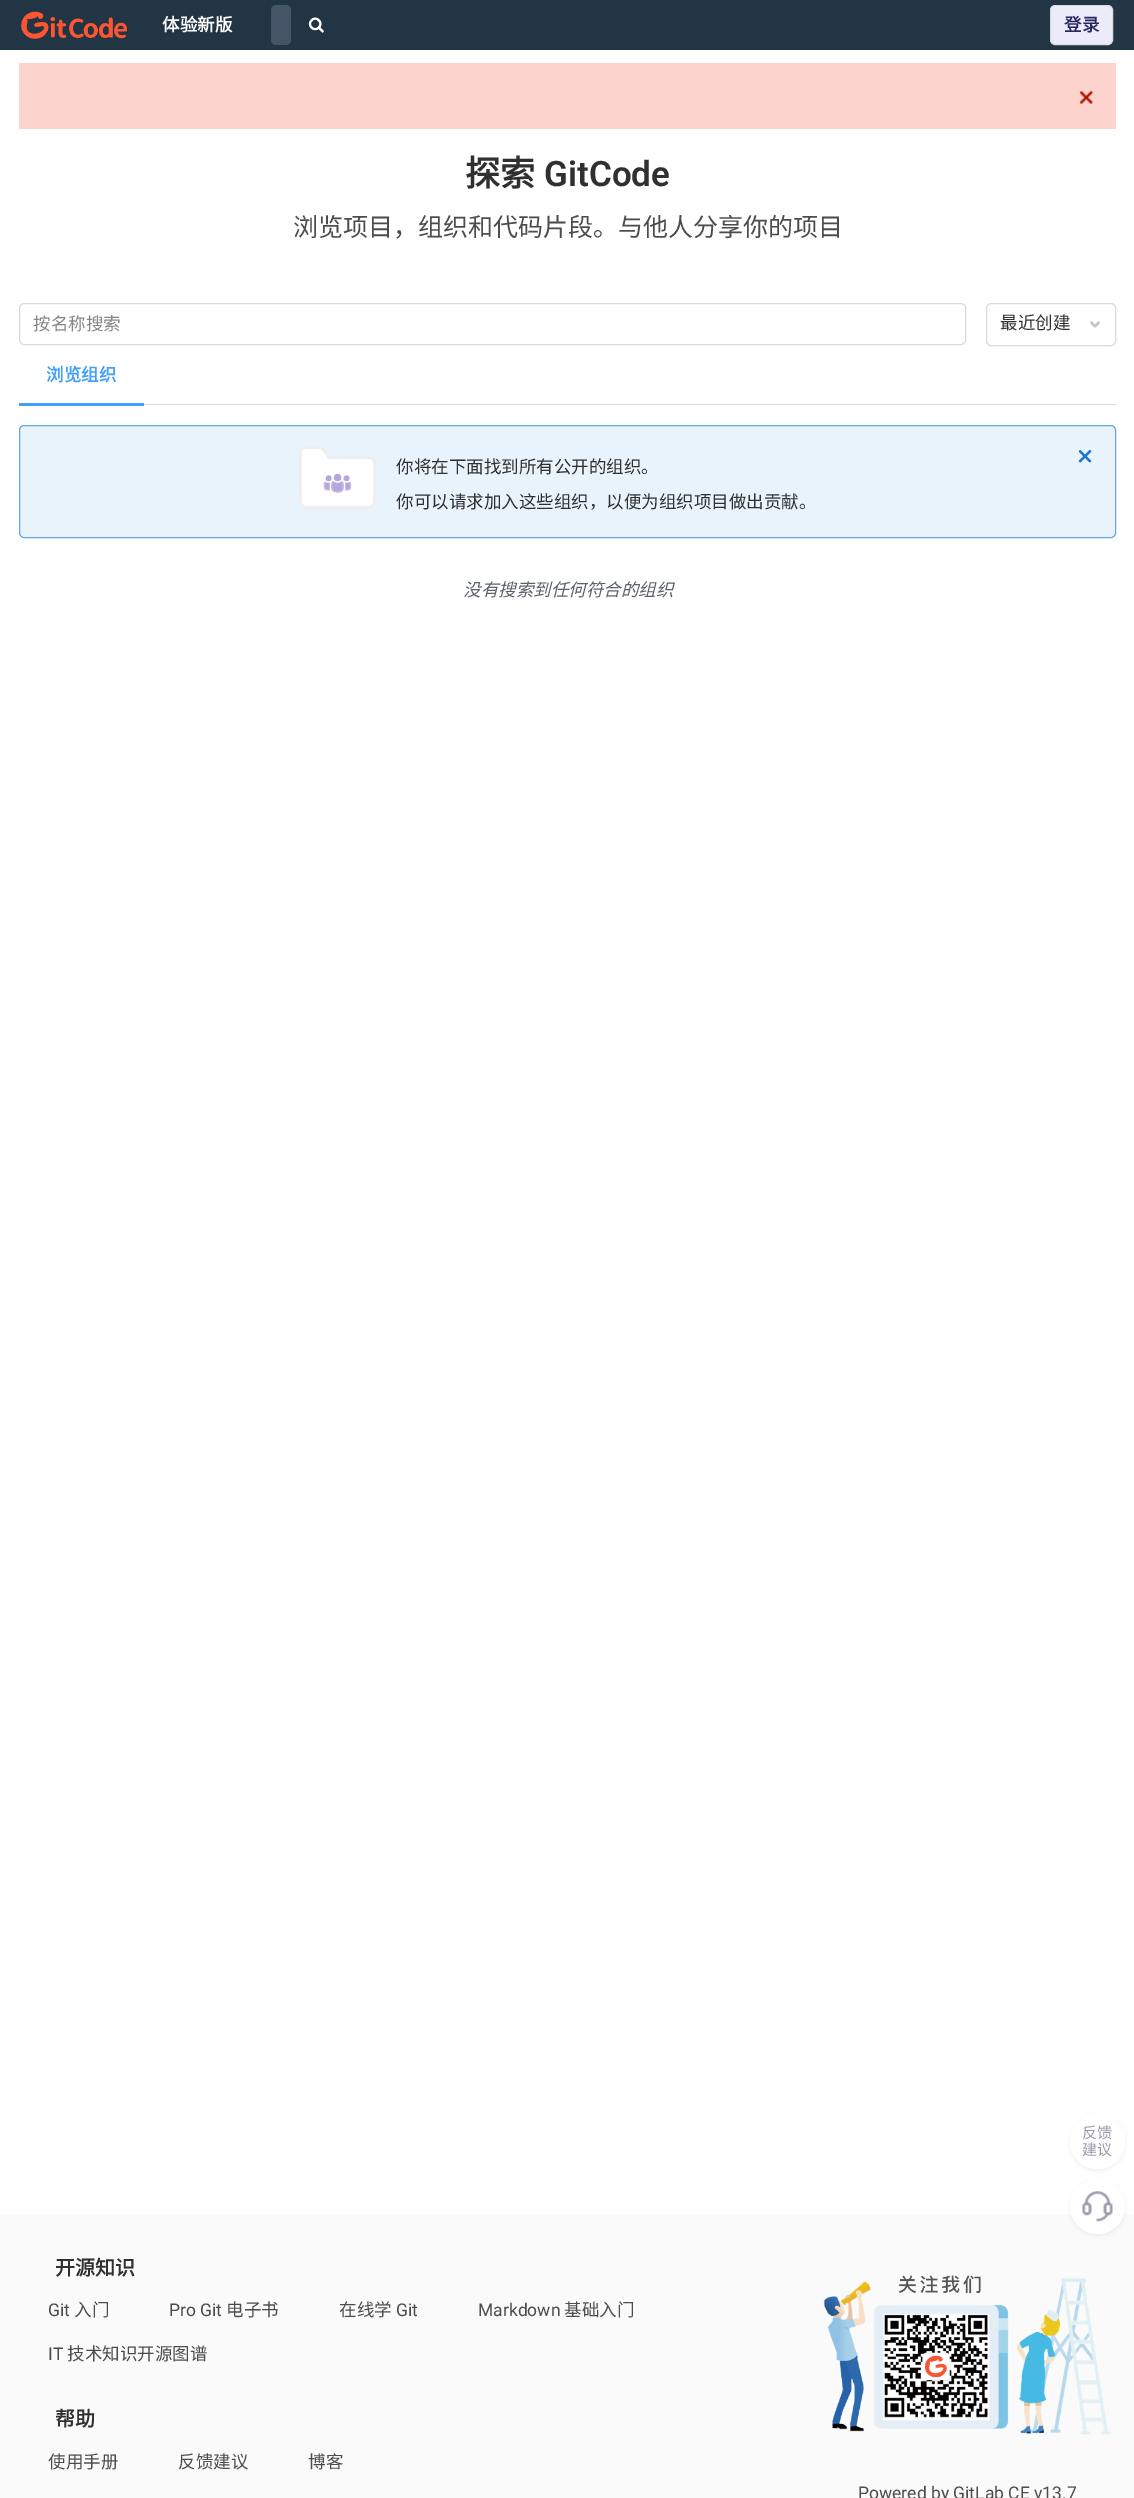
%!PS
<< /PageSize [1134 2498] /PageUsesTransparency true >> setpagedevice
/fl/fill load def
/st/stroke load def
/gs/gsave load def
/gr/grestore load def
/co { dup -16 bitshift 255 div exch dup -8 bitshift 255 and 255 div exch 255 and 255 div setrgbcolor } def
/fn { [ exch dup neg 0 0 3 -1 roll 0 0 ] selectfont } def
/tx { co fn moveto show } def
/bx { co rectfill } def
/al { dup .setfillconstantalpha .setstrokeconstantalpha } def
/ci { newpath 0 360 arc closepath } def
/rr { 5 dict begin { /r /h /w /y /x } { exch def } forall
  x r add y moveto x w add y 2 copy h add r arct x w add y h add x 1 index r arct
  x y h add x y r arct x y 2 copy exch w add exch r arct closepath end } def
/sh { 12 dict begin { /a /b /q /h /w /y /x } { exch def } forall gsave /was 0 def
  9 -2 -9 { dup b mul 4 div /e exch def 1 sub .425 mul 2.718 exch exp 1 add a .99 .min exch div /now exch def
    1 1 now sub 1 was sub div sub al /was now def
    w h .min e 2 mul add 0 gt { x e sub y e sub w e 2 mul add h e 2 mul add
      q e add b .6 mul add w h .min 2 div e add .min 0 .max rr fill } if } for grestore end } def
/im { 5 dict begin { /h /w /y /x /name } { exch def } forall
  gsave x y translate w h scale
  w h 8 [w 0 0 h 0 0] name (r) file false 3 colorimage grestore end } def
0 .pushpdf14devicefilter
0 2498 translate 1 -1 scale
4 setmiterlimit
0 0 1134 2498 16#FFFFFF bx
0 0 1134 50 16#223544 bx
(media/1.raw) 21 11 106 28 im
16#455466 co
271 5 20 40 5 rr fl
(media/2.raw) 308 17 16 16 im
16#EBEBFA co
1050.5 5.5 62 39 4.5 rr gs fl gr
16#DBDBDB co
st
19 63 1097 66 16#FDD4CD bx
(media/3.raw) 1079 90 15 15 im
144 404 972 1 16#DBDBDB bx
19.5 303.5 946 41 4.5 rr st
986.5 303.5 129 42 4.5 rr st
(media/4.raw) 1090 321 10 7 im
19 403 125 3 16#409EFF bx
16#E9F3FC co
19.5 425.5 1096 112 4.5 rr gs fl gr
16#63A6E9 co
st
(media/5.raw) 299 446 77 63 im
(media/6.raw) 1078 450 14 13 im
16#000000 co
1070 2116 55 55 27.5 2.5 .05 sh
16#FFFFFF co
1097.5 2141.5 27.5 ci fl
0 2214 1134 284 16#FAFAFA bx
16#000000 co
1070 2181 55 55 27.5 2.5 .05 sh
16#FFFFFF co
1097.5 2206.5 27.5 ci fl
(media/7.raw) 1082 2191 31 31 im
(media/8.raw) 823 2275 288 160 im
(体验新版) 162 31 /NotoSansCJKSC-Bold 17.5 16#FFFFFF tx
(登录) 1064 31 /NotoSansCJKSC-Bold 17.5 16#292961 tx
(探索) 465 186 /NotoSansCJKSC-Bold 35 16#303030 tx
(GitCode) 544 186 /Roboto-SemiBold 35 16#303030 tx
(浏览项目，组织和代码片段。与他人分享你的项目) 293 236 /NotoSansCJKSC-Regular 25 16#4C4C4C tx
(按名称搜索) 33 330 /NotoSansCJKSC-Regular 17.5 16#868686 tx
(最近创建) 1000 329 /NotoSansCJKSC-Regular 17.5 16#303030 tx
(浏览组织) 46 381 /NotoSansCJKSC-Bold 17.5 16#409EFF tx
(你将在下面找到所有公开的组织。) 396 473 /NotoSansCJKSC-Regular 17.5 16#303030 tx
(你可以请求加入这些组织，以便为组织项目做出贡献。) 396 508 /NotoSansCJKSC-Regular 17.5 16#303030 tx
(没有搜索到任何符合的组织) 463 596 /NotoSansCJKSC-Italic 17.5 16#5B6169 tx
(反馈) 1082 2138 /NotoSansCJKSC-Regular 15 16#999AAA tx
(建议) 1082 2155 /NotoSansCJKSC-Regular 15 16#999AAA tx
(开源知识) 55 2275 /NotoSansCJKSC-Bold 20 16#303030 tx
(Git) 48 2316 /Roboto-Regular 17.5 16#4C4C4C tx
(入门) 74 2316 /NotoSansCJKSC-Regular 17.5 16#4C4C4C tx
(Pro Git) 169 2316 /Roboto-Regular 17.5 16#4C4C4C tx
(电子书) 226 2316 /NotoSansCJKSC-Regular 17.5 16#4C4C4C tx
(在线学) 339 2316 /NotoSansCJKSC-Regular 17.5 16#4C4C4C tx
(Git) 396 2316 /Roboto-Regular 17.5 16#4C4C4C tx
(Markdown) 478 2316 /Roboto-Regular 17.5 16#4C4C4C tx
(基础入门) 564 2316 /NotoSansCJKSC-Regular 17.5 16#4C4C4C tx
(IT) 48 2360 /Roboto-Regular 17.5 16#4C4C4C tx
(技术知识开源图谱) 67 2360 /NotoSansCJKSC-Regular 17.5 16#4C4C4C tx
(帮助) 55 2426 /NotoSansCJKSC-Bold 20 16#303030 tx
(使用手册) 48 2468 /NotoSansCJKSC-Regular 17.5 16#4C4C4C tx
(反馈建议) 178 2468 /NotoSansCJKSC-Regular 17.5 16#4C4C4C tx
(博客) 308 2468 /NotoSansCJKSC-Regular 17.5 16#4C4C4C tx
(Powered by GitLab CE v13.7) 858 2499 /Roboto-Regular 17.5 16#4C4C4C tx
.poppdf14devicefilter showpage
